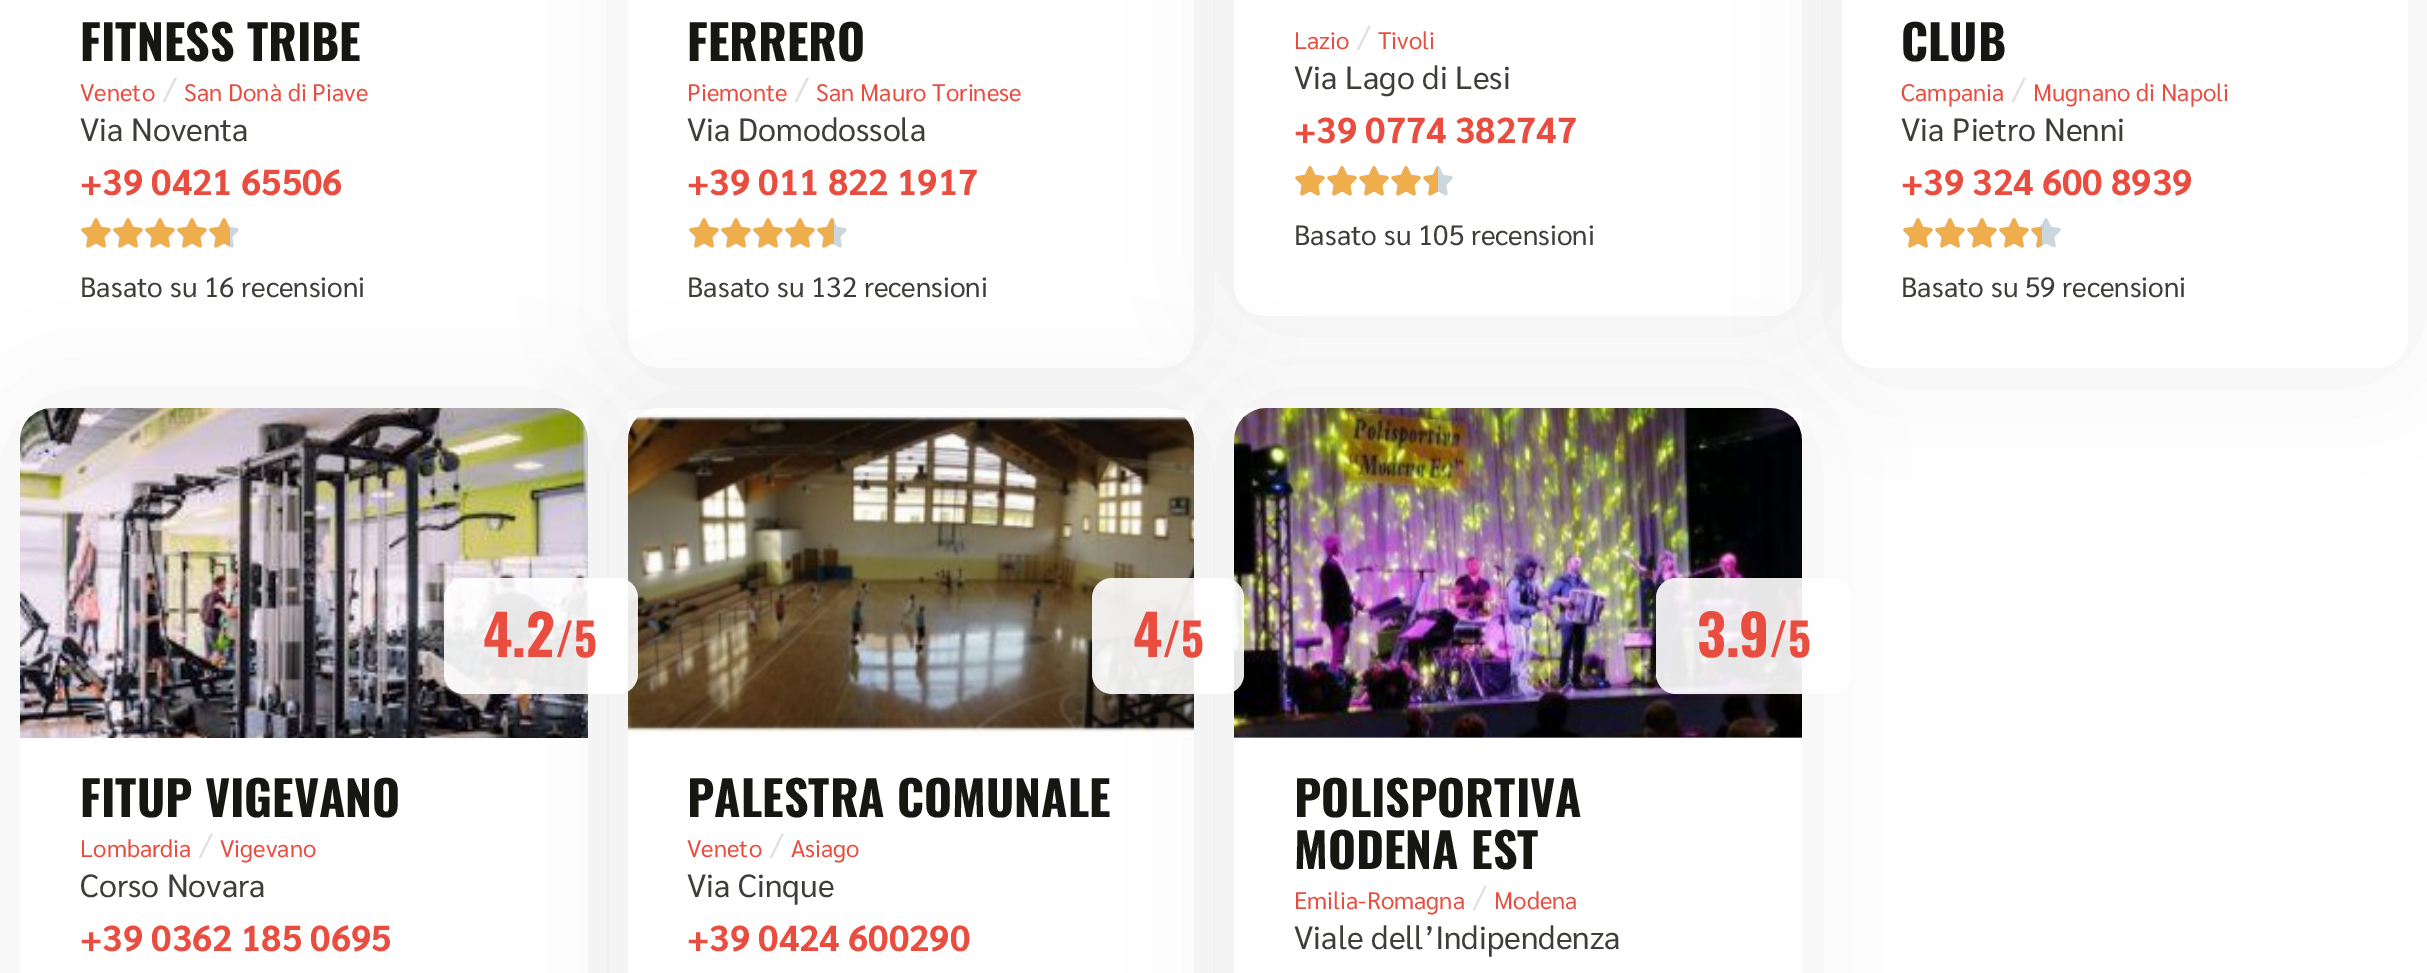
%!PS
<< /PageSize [2427 973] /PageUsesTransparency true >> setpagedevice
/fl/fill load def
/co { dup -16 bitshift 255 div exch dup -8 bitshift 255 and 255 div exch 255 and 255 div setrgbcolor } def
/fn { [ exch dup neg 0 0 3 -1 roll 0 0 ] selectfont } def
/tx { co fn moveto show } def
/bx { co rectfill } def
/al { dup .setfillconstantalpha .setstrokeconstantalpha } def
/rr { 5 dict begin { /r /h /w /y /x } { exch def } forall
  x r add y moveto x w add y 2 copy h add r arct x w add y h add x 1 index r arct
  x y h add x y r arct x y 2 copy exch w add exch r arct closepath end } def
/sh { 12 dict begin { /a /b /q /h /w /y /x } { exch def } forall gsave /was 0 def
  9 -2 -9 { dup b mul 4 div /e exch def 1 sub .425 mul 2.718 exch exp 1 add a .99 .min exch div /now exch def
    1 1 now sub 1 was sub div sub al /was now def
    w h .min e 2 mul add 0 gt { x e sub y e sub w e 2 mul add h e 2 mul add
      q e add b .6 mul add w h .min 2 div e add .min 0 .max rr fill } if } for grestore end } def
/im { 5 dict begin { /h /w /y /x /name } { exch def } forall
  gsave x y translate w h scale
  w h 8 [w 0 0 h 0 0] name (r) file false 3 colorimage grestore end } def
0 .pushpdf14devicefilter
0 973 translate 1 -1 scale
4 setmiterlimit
0 0 2427 973 16#FFFFFF bx
(media/1.raw) 81 218 30 30 im
(media/2.raw) 81 218 30 30 im
(media/1.raw) 113 218 30 30 im
(media/2.raw) 113 218 30 30 im
(media/1.raw) 145 218 30 30 im
(media/2.raw) 145 218 30 30 im
(media/1.raw) 177 218 30 30 im
(media/2.raw) 177 218 30 30 im
(media/1.raw) 209 218 30 30 im
(media/3.raw) 209 218 21 30 im
16#000000 co
652 -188 518 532 8 60 .08 sh
16#FFFFFF co
628 -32 566 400 32 rr fl
(media/1.raw) 689 218 30 30 im
(media/2.raw) 689 218 30 30 im
(media/1.raw) 721 218 30 30 im
(media/2.raw) 721 218 30 30 im
(media/1.raw) 753 218 30 30 im
(media/2.raw) 753 218 30 30 im
(media/1.raw) 785 218 30 30 im
(media/2.raw) 785 218 30 30 im
(media/1.raw) 817 218 30 30 im
(media/4.raw) 817 218 17 30 im
16#000000 co
1258 -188 520 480 8 60 .08 sh
16#FFFFFF co
1234 -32 568 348 32 rr fl
(media/1.raw) 1295 166 30 30 im
(media/2.raw) 1295 166 30 30 im
(media/1.raw) 1327 166 30 30 im
(media/2.raw) 1327 166 30 30 im
(media/1.raw) 1359 166 30 30 im
(media/2.raw) 1359 166 30 30 im
(media/1.raw) 1391 166 30 30 im
(media/2.raw) 1391 166 30 30 im
(media/1.raw) 1423 166 30 30 im
(media/5.raw) 1423 166 15 30 im
16#000000 co
1866 -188 518 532 8 60 .08 sh
16#FFFFFF co
1842 -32 566 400 32 rr fl
(media/1.raw) 1903 218 30 30 im
(media/2.raw) 1903 218 30 30 im
(media/1.raw) 1935 218 30 30 im
(media/2.raw) 1935 218 30 30 im
(media/1.raw) 1967 218 30 30 im
(media/2.raw) 1967 218 30 30 im
(media/1.raw) 1999 218 30 30 im
(media/2.raw) 1999 218 30 30 im
(media/1.raw) 2031 218 30 30 im
(media/6.raw) 2031 224 11 24 im
16#000000 co
44 432 520 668 8 60 .08 sh
16#FFFFFF co
20 408 568 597 32 rr fl
16#000000 co
652 432 518 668 8 60 .08 sh
(media/7.raw) 20 408 568 330 im
16#FFFFFF co
628 408 566 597 32 rr fl
16#000000 co
1258 432 520 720 8 60 .08 sh
(media/8.raw) 628 410 566 327 im
0.9 al
16#FFFFFF co
444 578 194 116 20 rr fl
1 al
1234 408 568 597 32 rr fl
(media/9.raw) 1234 408 568 330 im
0.9 al
1092 578 152 116 20 rr fl
1656 578 196 116 20 rr fl
1 al
(FITNESS TRIBE) 80 61 /Oswald-Bold 48 16#161613 tx
(Veneto) 80 101 /Sarabun-Regular 24 16#E94D3F tx
(/) 163 101 /Sarabun-Regular 32 16#E3DFDF tx
(San Donà di Piave) 184 101 /Sarabun-Regular 24 16#E94D3F tx
(Via Noventa) 80 141 /Sarabun-Regular 32 16#3D3D3A tx
(+39 0421 65506) 80 195 /Sarabun-Bold 36 16#E94D3F tx
(Basato su 16 recensioni) 80 297 /Sarabun-Regular 28 16#3D3D3A tx
(FERRERO) 687 61 /Oswald-Bold 48 16#161613 tx
(Piemonte) 687 101 /Sarabun-Regular 24 16#E94D3F tx
(/) 795 101 /Sarabun-Regular 32 16#E3DFDF tx
(San Mauro Torinese) 816 101 /Sarabun-Regular 24 16#E94D3F tx
(Via Domodossola) 687 141 /Sarabun-Regular 32 16#3D3D3A tx
(+39 011 822 1917) 687 195 /Sarabun-Bold 36 16#E94D3F tx
(Basato su 132 recensioni) 687 297 /Sarabun-Regular 28 16#3D3D3A tx
(Lazio) 1294 49 /Sarabun-Regular 24 16#E94D3F tx
(/) 1357 49 /Sarabun-Regular 32 16#E3DFDF tx
(Tivoli) 1378 49 /Sarabun-Regular 24 16#E94D3F tx
(Via Lago di Lesi) 1294 89 /Sarabun-Regular 32 16#3D3D3A tx
(+39 0774 382747) 1294 143 /Sarabun-Bold 36 16#E94D3F tx
(Basato su 105 recensioni) 1294 245 /Sarabun-Regular 28 16#3D3D3A tx
(CLUB) 1901 61 /Oswald-Bold 48 16#161613 tx
(Campania) 1901 101 /Sarabun-Regular 24 16#E94D3F tx
(/) 2012 101 /Sarabun-Regular 32 16#E3DFDF tx
(Mugnano di Napoli) 2033 101 /Sarabun-Regular 24 16#E94D3F tx
(Via Pietro Nenni) 1901 141 /Sarabun-Regular 32 16#3D3D3A tx
(+39 324 600 8939) 1901 195 /Sarabun-Bold 36 16#E94D3F tx
(Basato su 59 recensioni) 1901 297 /Sarabun-Regular 28 16#3D3D3A tx
(4.2) 483 657 /Oswald-Bold 56 16#E94D3F tx
(/5) 555 657 /Oswald-Bold 45 16#E94D3F tx
(FITUP VIGEVANO) 80 817 /Oswald-Bold 48 16#161613 tx
(Lombardia) 80 857 /Sarabun-Regular 24 16#E94D3F tx
(/) 199 857 /Sarabun-Regular 32 16#E3DFDF tx
(Vigevano) 220 857 /Sarabun-Regular 24 16#E94D3F tx
(Corso Novara) 80 897 /Sarabun-Regular 32 16#3D3D3A tx
(+39 0362 185 0695) 80 951 /Sarabun-Bold 36 16#E94D3F tx
(4) 1133 657 /Oswald-Bold 56 16#E94D3F tx
(/5) 1162 657 /Oswald-Bold 45 16#E94D3F tx
(PALESTRA COMUNALE) 687 817 /Oswald-Bold 48 16#161613 tx
(Veneto) 687 857 /Sarabun-Regular 24 16#E94D3F tx
(/) 770 857 /Sarabun-Regular 32 16#E3DFDF tx
(Asiago) 791 857 /Sarabun-Regular 24 16#E94D3F tx
(Via Cinque) 687 897 /Sarabun-Regular 32 16#3D3D3A tx
(+39 0424 600290) 687 951 /Sarabun-Bold 36 16#E94D3F tx
(3.9) 1697 657 /Oswald-Bold 56 16#E94D3F tx
(/5) 1769 657 /Oswald-Bold 45 16#E94D3F tx
(POLISPORTIVA) 1294 817 /Oswald-Bold 48 16#161613 tx
(MODENA EST) 1294 869 /Oswald-Bold 48 16#161613 tx
(Emilia-Romagna) 1294 909 /Sarabun-Regular 24 16#E94D3F tx
(/) 1473 909 /Sarabun-Regular 32 16#E3DFDF tx
(Modena) 1494 909 /Sarabun-Regular 24 16#E94D3F tx
(Viale dell’Indipendenza) 1294 949 /Sarabun-Regular 32 16#3D3D3A tx
.poppdf14devicefilter showpage
